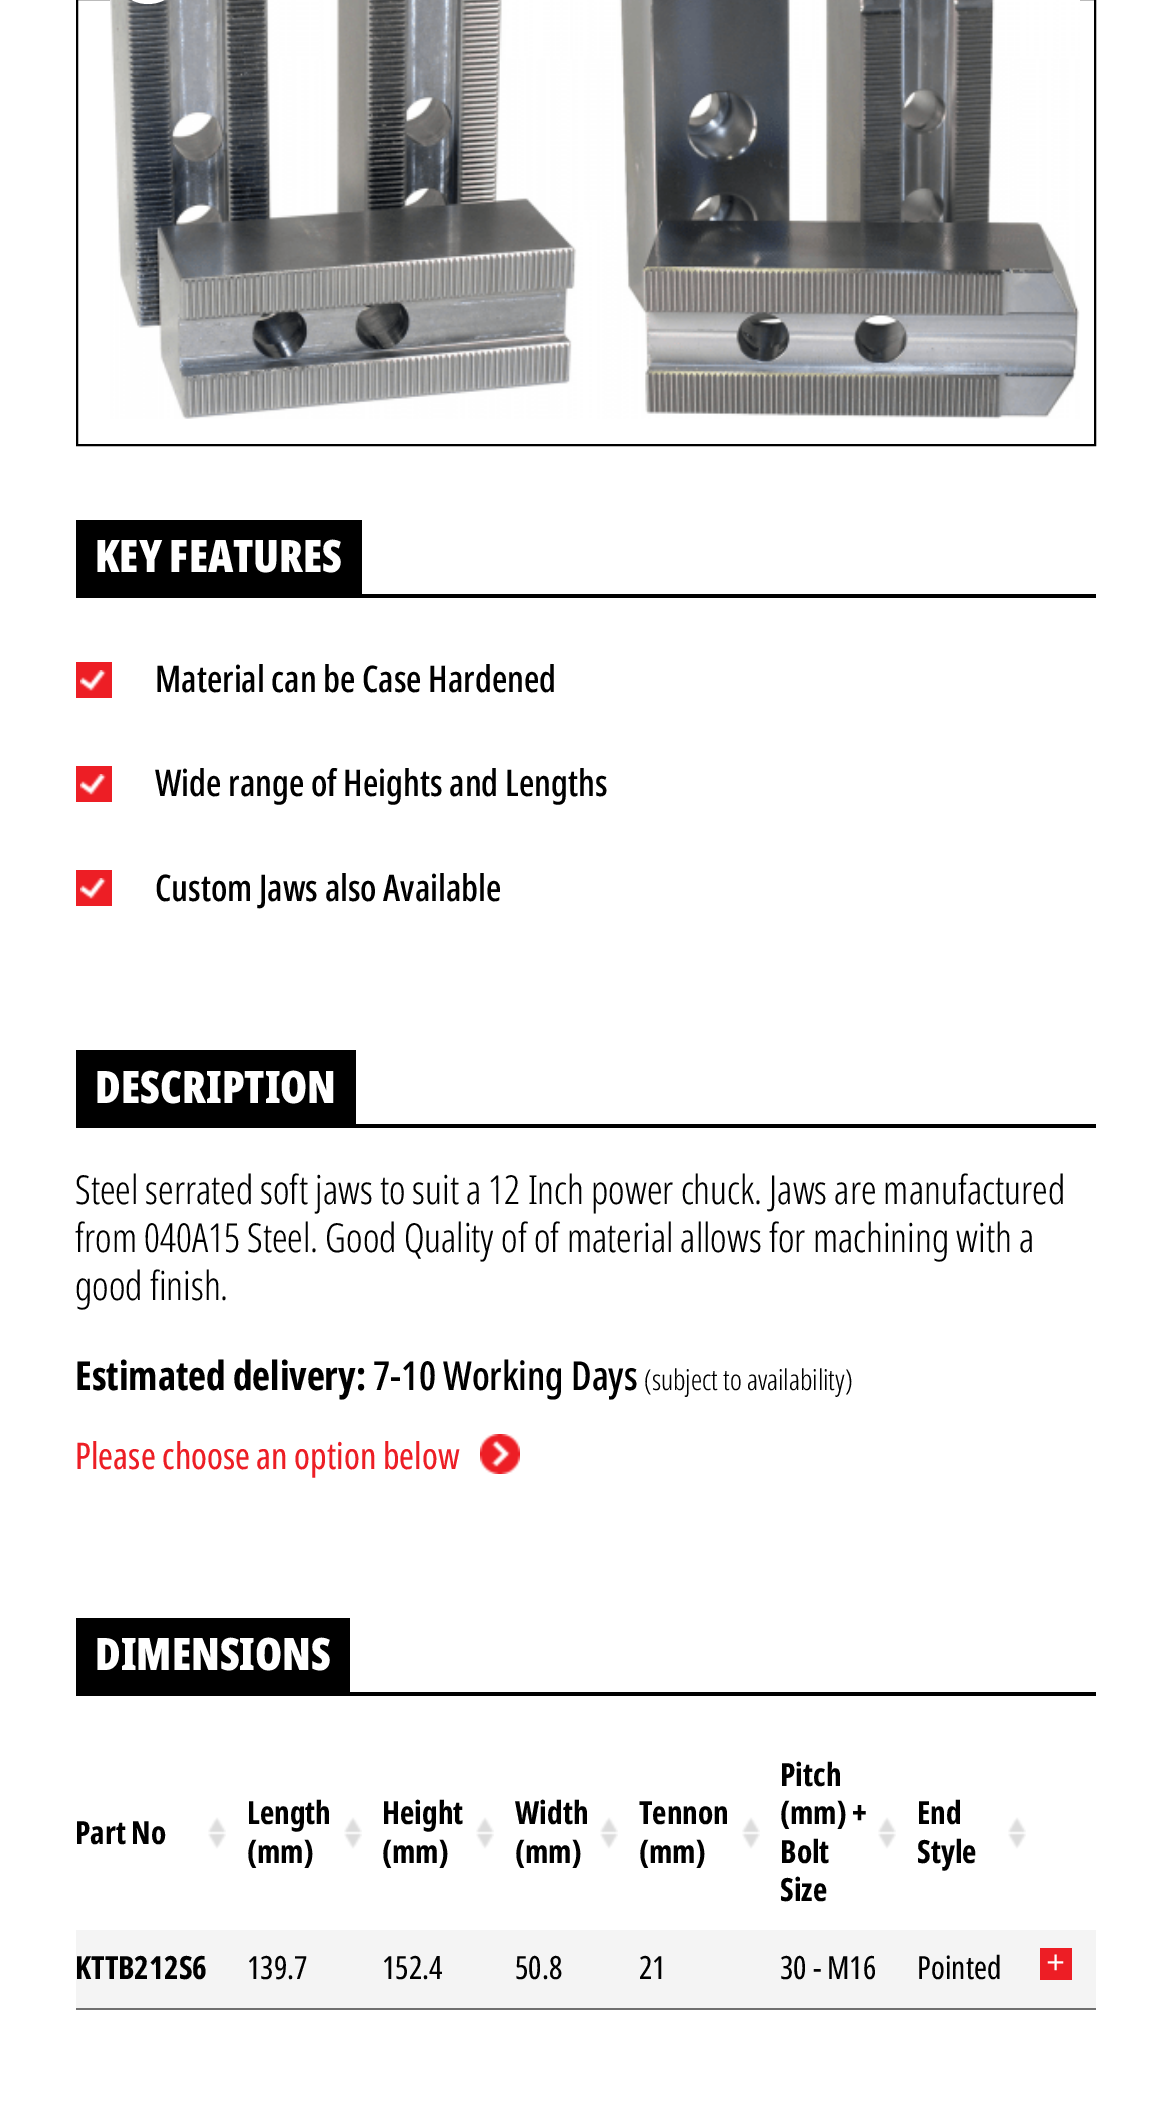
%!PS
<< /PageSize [1169 2111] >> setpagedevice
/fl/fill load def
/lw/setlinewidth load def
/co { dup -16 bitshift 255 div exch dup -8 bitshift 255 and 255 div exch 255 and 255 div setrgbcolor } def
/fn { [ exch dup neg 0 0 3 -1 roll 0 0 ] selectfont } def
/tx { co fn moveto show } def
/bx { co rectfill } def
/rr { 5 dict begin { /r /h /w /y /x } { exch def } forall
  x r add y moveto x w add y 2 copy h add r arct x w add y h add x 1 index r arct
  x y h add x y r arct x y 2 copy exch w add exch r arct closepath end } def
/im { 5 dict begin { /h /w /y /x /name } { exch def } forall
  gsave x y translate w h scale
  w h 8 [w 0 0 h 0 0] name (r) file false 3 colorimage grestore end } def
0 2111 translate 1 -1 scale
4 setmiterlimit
0 0 1169 2111 16#FFFFFF bx
16#000000 co
2 lw
77 -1 1018 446 rectstroke
(media/1.raw) 110 0 970 419 im
16#FFFFFF co
112 -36 72 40 36 rr fl
76 594 1020 4 16#000000 bx
76 520 286 74 16#000000 bx
76 662 36 36 16#ED1E25 bx
(media/2.raw) 80 670 26 21 im
76 766 36 36 16#ED1E25 bx
(media/2.raw) 80 774 26 21 im
76 870 36 36 16#ED1E25 bx
(media/2.raw) 80 878 26 21 im
76 1124 1020 4 16#000000 bx
76 1050 280 74 16#000000 bx
(media/3.raw) 480 1434 40 40 im
76 1692 1020 4 16#000000 bx
76 1618 274 74 16#000000 bx
(media/4.raw) 208 1817 18 32 im
(media/4.raw) 344 1817 18 32 im
(media/4.raw) 476 1817 18 32 im
(media/4.raw) 600 1817 18 32 im
(media/4.raw) 742 1817 18 32 im
(media/4.raw) 878 1817 18 32 im
(media/4.raw) 1008 1817 18 32 im
76 1930 1020 78 16#F4F4F4 bx
76 2008 1020 2 16#707070 bx
1040 1948 32 32 16#ED1E25 bx
(KEY FEATURES) 95 572 /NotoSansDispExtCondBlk-Black 44.75 16#FFFFFF tx
(Material can be Case Hardened) 155 692 /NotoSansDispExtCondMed-Medium 36.75 16#000000 tx
(Wide range of Heights and Lengths) 155 796 /NotoSansDispExtCondMed-Medium 36.75 16#000000 tx
(Custom Jaws also Available) 155 901 /NotoSansDispExtCondMed-Medium 36.75 16#000000 tx
(DESCRIPTION) 95 1103 /NotoSansDispExtCondBlk-Black 44.75 16#FFFFFF tx
(Steel serrated soft jaws to suit a 12 Inch power chuck. Jaws are manufactured) 75 1204 /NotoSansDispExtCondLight-Light 40 16#000000 tx
(from 040A15 Steel. Good Quality of of material allows for machining with a) 75 1252 /NotoSansDispExtCondLight-Light 40 16#000000 tx
(good finish.) 75 1300 /NotoSansDispExtCondLight-Light 40 16#000000 tx
(Estimated delivery:) 75 1390 /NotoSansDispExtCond-Bold 40 16#000000 tx
(7-10 Working Days) 373 1390 /NotoSansDispExtCondMed-Medium 40 16#000000 tx
(\(subject to availability\)) 644 1390 /NotoSansDispExtCondLight-Light 28.75 16#000000 tx
(Please choose an option below) 75 1469 /NotoSansDispExtCond-Regular 36.75 16#ED1E25 tx
(DIMENSIONS) 95 1670 /NotoSansDispExtCondBlk-Black 44.75 16#FFFFFF tx
(Part No) 75 1844 /NotoSansDispExtCond-Bold 32 16#000000 tx
(Length) 247 1824 /NotoSansDispExtCond-Bold 32 16#000000 tx
(\(mm\)) 247 1863 /NotoSansDispExtCond-Bold 32 16#000000 tx
(Height) 382 1824 /NotoSansDispExtCond-Bold 32 16#000000 tx
(\(mm\)) 382 1863 /NotoSansDispExtCond-Bold 32 16#000000 tx
(Width) 515 1824 /NotoSansDispExtCond-Bold 32 16#000000 tx
(\(mm\)) 515 1863 /NotoSansDispExtCond-Bold 32 16#000000 tx
(Tennon) 639 1824 /NotoSansDispExtCond-Bold 32 16#000000 tx
(\(mm\)) 639 1863 /NotoSansDispExtCond-Bold 32 16#000000 tx
(Pitch) 780 1786 /NotoSansDispExtCond-Bold 32 16#000000 tx
(\(mm\) +) 780 1824 /NotoSansDispExtCond-Bold 32 16#000000 tx
(Bolt) 780 1863 /NotoSansDispExtCond-Bold 32 16#000000 tx
(Size) 780 1901 /NotoSansDispExtCond-Bold 32 16#000000 tx
(End) 917 1824 /NotoSansDispExtCond-Bold 32 16#000000 tx
(Style) 917 1863 /NotoSansDispExtCond-Bold 32 16#000000 tx
(KTTB212S6) 75 1979 /NotoSansDispExtCond-Bold 32 16#000000 tx
(139.7) 247 1979 /NotoSansDispExtCond-Regular 32 16#000000 tx
(152.4) 382 1979 /NotoSansDispExtCond-Regular 32 16#000000 tx
(50.8) 515 1979 /NotoSansDispExtCond-Regular 32 16#000000 tx
(21) 639 1979 /NotoSansDispExtCond-Regular 32 16#000000 tx
(30 - M16) 780 1979 /NotoSansDispExtCond-Regular 32 16#000000 tx
(Pointed) 917 1979 /NotoSansDispExtCond-Regular 32 16#000000 tx
(+) 1046 1973 /LiberationMono-Regular 32 16#FFFFFF tx
showpage
